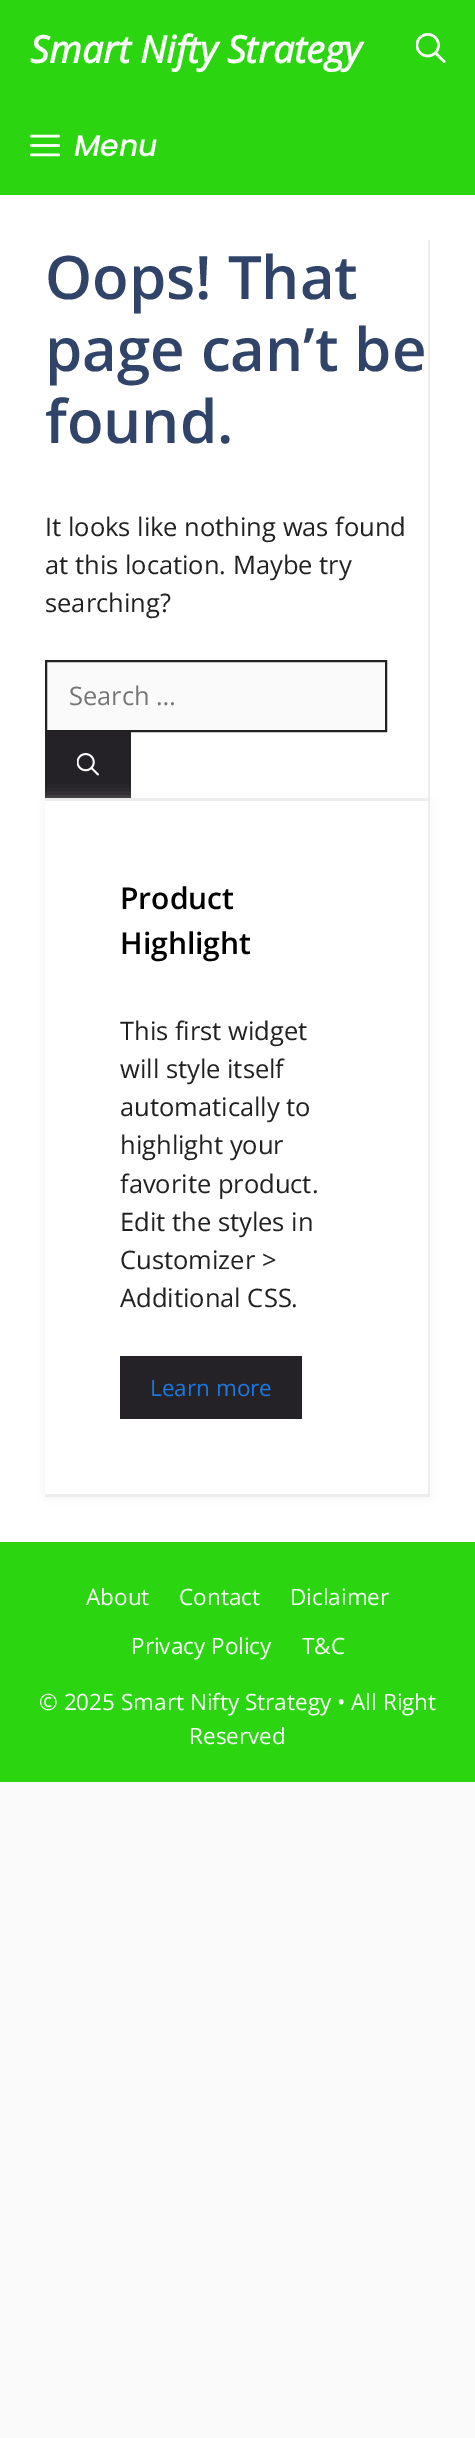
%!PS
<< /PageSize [475 2438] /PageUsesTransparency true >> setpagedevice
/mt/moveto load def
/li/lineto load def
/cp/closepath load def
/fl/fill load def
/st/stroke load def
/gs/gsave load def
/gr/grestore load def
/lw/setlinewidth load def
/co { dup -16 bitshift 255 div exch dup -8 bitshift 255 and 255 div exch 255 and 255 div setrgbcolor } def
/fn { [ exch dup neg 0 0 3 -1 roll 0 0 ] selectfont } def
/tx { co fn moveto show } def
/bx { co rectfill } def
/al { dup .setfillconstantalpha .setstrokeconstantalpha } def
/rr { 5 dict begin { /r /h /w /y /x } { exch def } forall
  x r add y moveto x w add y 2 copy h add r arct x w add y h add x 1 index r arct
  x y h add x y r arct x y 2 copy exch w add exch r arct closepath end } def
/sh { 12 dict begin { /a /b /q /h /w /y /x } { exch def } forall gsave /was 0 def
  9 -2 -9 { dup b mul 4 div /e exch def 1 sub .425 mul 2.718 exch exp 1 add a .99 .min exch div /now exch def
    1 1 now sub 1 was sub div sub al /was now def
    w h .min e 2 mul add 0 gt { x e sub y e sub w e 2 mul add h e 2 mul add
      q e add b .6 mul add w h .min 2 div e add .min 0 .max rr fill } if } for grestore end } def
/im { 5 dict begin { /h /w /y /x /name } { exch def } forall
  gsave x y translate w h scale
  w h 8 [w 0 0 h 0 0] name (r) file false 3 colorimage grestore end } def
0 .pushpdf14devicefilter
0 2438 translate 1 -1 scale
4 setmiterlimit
0 0 475 2438 16#FAFAFA bx
0 0 475 195 16#2BD611 bx
(media/1.raw) 416 33 30 30 im
(media/2.raw) 30 134 30 23 im
0 195 475 1347 16#FFFFFF bx
16#EDEDED co
430 240 mt 430 801 li 428 798 li 428 240 li cp fl
0.07 al
16#000000 co
430 801 mt 45 801 li 45 798 li 428 798 li cp fl
1 al
16#FAFAFA co
46 661 mt 386 661 li 386 731 li 46 731 li cp gs fl gr
16#212121 co
2 lw
st
45 732 86 66 16#242226 bx
(media/3.raw) 77 753 22 23 im
16#E8EAED co
45 801 386 696 0 7.5 .5 sh
45 801 386 696 16#FFFFFF bx
16#EDEDED co
430 801 mt 430 1497 li 428 1494 li 428 801 li cp fl
0.07 al
16#000000 co
430 1497 mt 45 1497 li 45 1494 li 428 1494 li cp fl
1 al
120 1356 182 63 16#242226 bx
0 1542 475 240 16#2BD611 bx
(Smart Nifty Strategy) 30 63 /OpenSans-BoldItalic 37.5 16#FFFFFF tx
(Menu) 74 156 /Poppins-MediumItalic 30 16#FFFFFF tx
(Oops! That) 45 299 /OpenSans-SemiBold 60 16#2F4468 tx
(page can’t be) 45 371 /OpenSans-SemiBold 60 16#2F4468 tx
(found.) 45 443 /OpenSans-SemiBold 60 16#2F4468 tx
(It looks like nothing was found) 45 536 /OpenSans-Regular 25.5 16#212121 tx
(at this location. Maybe try) 45 574 /OpenSans-Regular 25.5 16#212121 tx
(searching?) 45 612 /OpenSans-Regular 25.5 16#212121 tx
(Search …) 69 705 /OpenSans-Regular 25.5 16#757575 tx
(Product) 120 909 /OpenSans-SemiBold 30 16#000000 tx
(Highlight) 120 954 /OpenSans-SemiBold 30 16#000000 tx
(This first widget) 120 1040 /OpenSans-Regular 25.5 16#212121 tx
(will style itself) 120 1078 /OpenSans-Regular 25.5 16#212121 tx
(automatically to) 120 1116 /OpenSans-Regular 25.5 16#212121 tx
(highlight your) 120 1154 /OpenSans-Regular 25.5 16#212121 tx
(favorite product.) 120 1193 /OpenSans-Regular 25.5 16#212121 tx
(Edit the styles in) 120 1231 /OpenSans-Regular 25.5 16#212121 tx
(Customizer >) 120 1269 /OpenSans-Regular 25.5 16#212121 tx
(Additional CSS.) 120 1307 /OpenSans-Regular 25.5 16#212121 tx
(Learn more) 150 1396 /OpenSans-Regular 22.5 16#1B78E2 tx
(About) 86 1605 /OpenSans-Regular 22.5 16#FFFFFF tx
(Contact) 179 1605 /OpenSans-Regular 22.5 16#FFFFFF tx
(Diclaimer) 290 1605 /OpenSans-Regular 22.5 16#FFFFFF tx
(Privacy Policy) 131 1654 /OpenSans-Regular 22.5 16#FFFFFF tx
(T&C) 302 1654 /OpenSans-Regular 22.5 16#FFFFFF tx
(© 2025 Smart Nifty Strategy • All Right) 39 1710 /OpenSans-Regular 22.5 16#FFFFFF tx
(Reserved) 189 1744 /OpenSans-Regular 22.5 16#FFFFFF tx
.poppdf14devicefilter showpage
